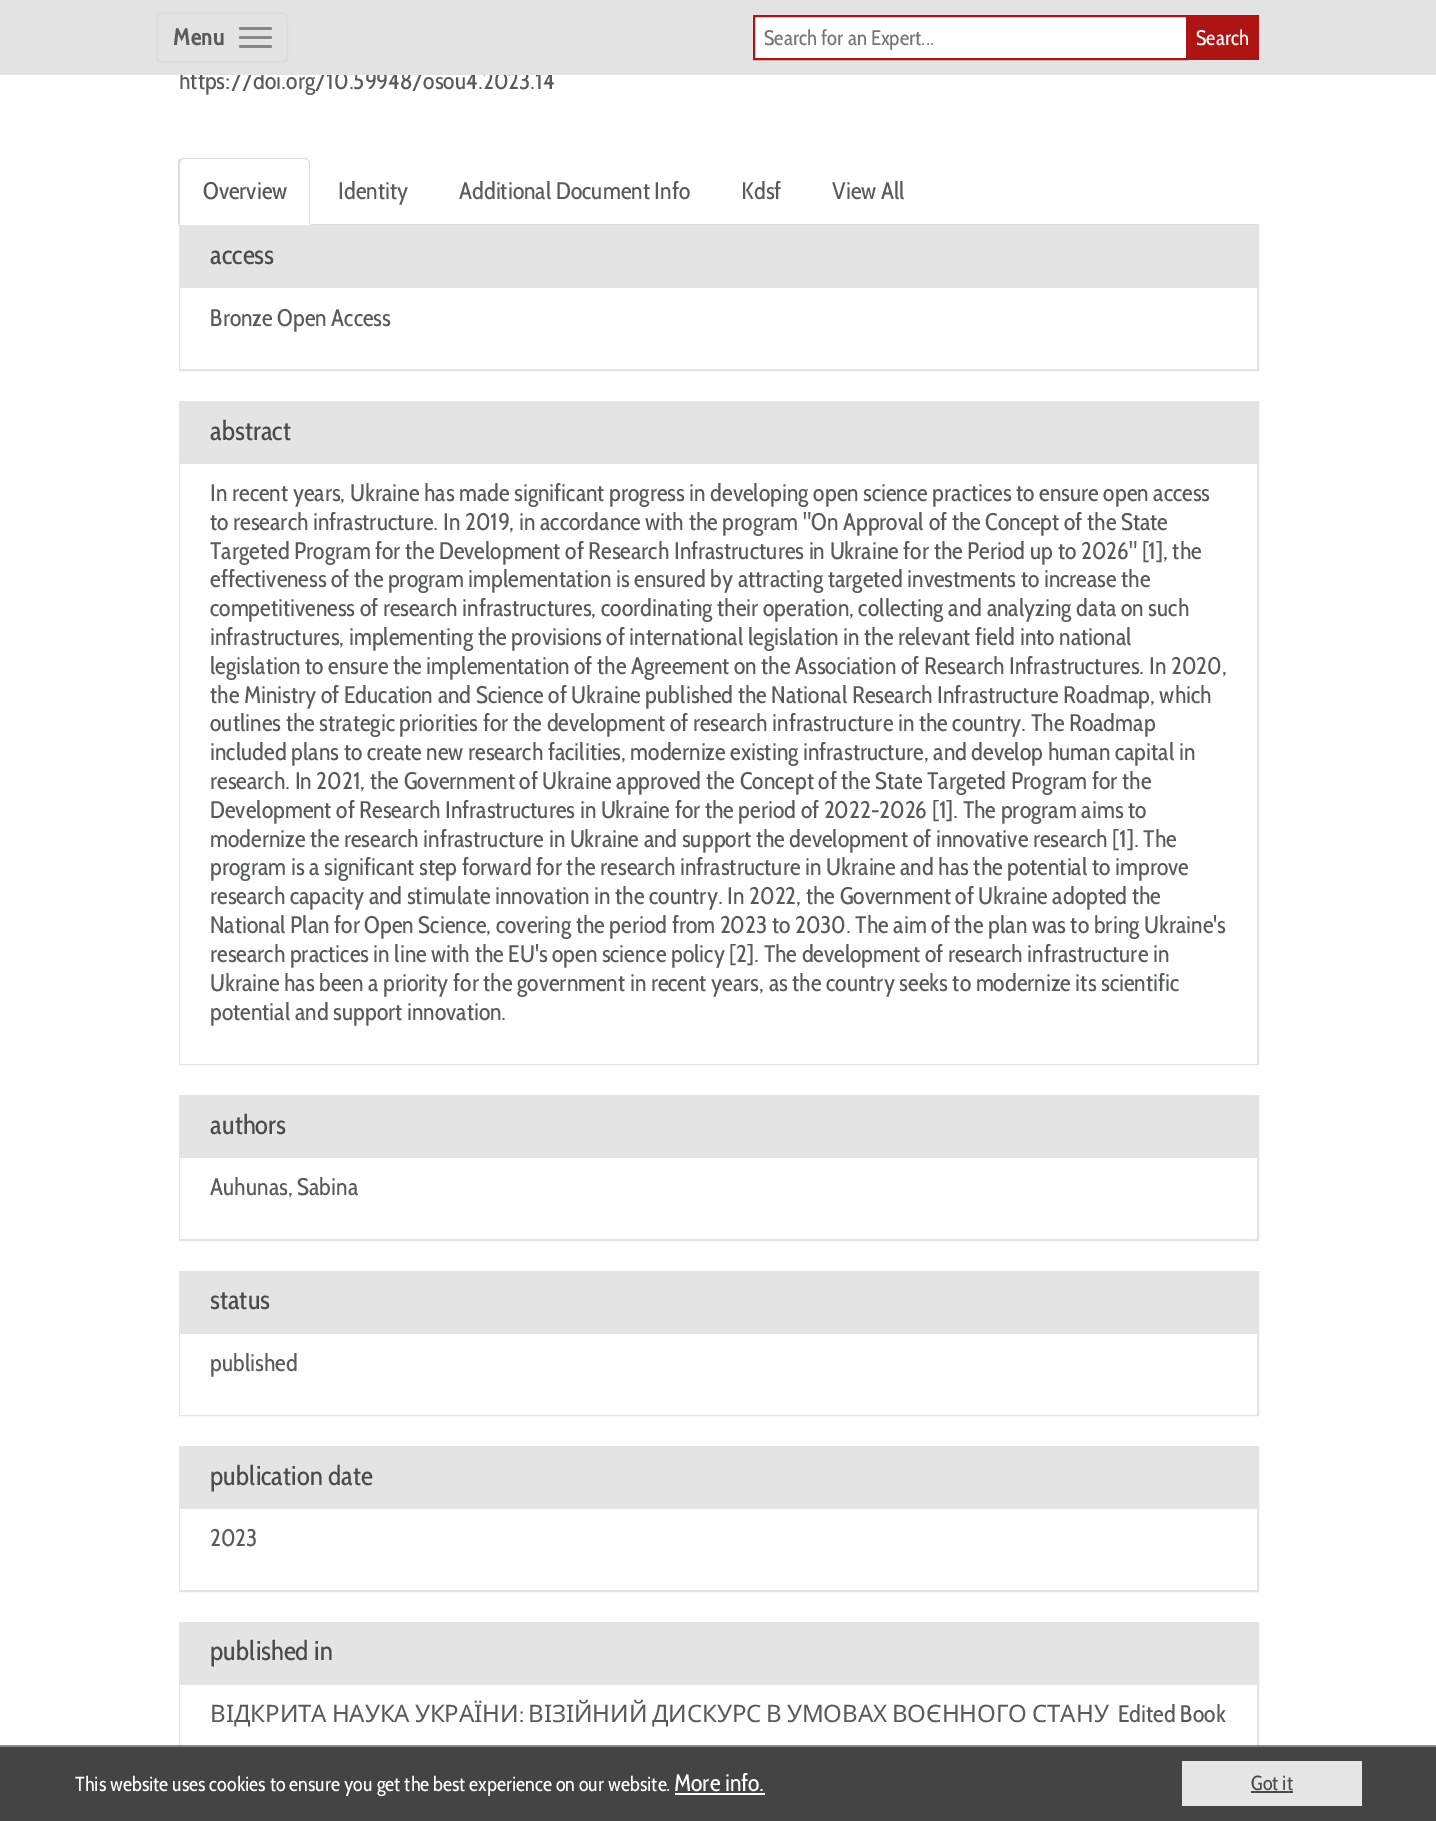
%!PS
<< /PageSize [1436 1821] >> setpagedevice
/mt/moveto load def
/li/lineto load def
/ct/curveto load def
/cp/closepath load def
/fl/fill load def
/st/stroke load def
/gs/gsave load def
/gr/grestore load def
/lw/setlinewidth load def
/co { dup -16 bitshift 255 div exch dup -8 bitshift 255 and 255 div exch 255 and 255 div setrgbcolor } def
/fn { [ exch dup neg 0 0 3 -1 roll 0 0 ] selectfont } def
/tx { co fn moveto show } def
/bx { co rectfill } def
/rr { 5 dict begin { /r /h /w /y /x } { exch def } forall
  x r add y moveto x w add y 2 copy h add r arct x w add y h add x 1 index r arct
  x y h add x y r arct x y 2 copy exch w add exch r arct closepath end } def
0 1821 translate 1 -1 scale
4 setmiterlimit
0 0 1436 1821 16#FFFFFF bx
311 224 948 1 16#DDDDDD bx
184 158 mt 180 159 li 181 160 li 182 159 183 159 184 159 ct 304 159 li 306 159 307 160 308 160 ct 308 158 306 158 304 158 ct cp fl
310 224 mt 310 164 li 310 162 310 160 308 160 ct 308 161 309 162 309 164 ct 309 224 li cp fl
178 225 mt 180 224 li 180 164 li 180 162 181 161 181 160 ct 180 159 li 178 161 li cp fl
16#DFE6E5 co
2 lw
180 226 1078 144 rectstroke
180 227 1077 60 16#E4E4E4 bx
180 287 1077 1 16#DFE6E5 bx
180 288 1 81 16#FFFFFF bx
16#DFE6E5 co
180 402 1078 662 rectstroke
180 402 1077 60 16#E4E4E4 bx
180 462 1077 2 16#DFE6E5 bx
180 464 1077 600 16#FFFFFF bx
16#DFE6E5 co
180 1096 1078 144 rectstroke
180 1097 1077 60 16#E4E4E4 bx
180 1157 1077 1 16#DFE6E5 bx
180 1158 1 81 16#FFFFFF bx
16#DFE6E5 co
180 1272 1078 143 rectstroke
180 1272 1077 60 16#E4E4E4 bx
180 1332 1077 2 16#DFE6E5 bx
180 1334 1077 81 16#FFFFFF bx
16#DFE6E5 co
180 1447 1078 144 rectstroke
180 1448 1077 60 16#E4E4E4 bx
180 1508 1077 1 16#DFE6E5 bx
180 1509 1 81 16#FFFFFF bx
16#DFE6E5 co
180 1623 1078 143 rectstroke
180 1623 1077 60 16#E4E4E4 bx
180 1683 1077 2 16#DFE6E5 bx
180 1685 1 60 16#FFFFFF bx
0 1747 1436 74 16#444444 bx
0 1745 1436 2 16#888888 bx
675 1793 90 2 16#FFFFFF bx
1182 1761 180 45 16#E6E6E6 bx
1251 1791 42 2 16#4B4B4B bx
(https://doi.org/10.59948/osou4.2023.14) 179 89 /CabinCondensed-Regular 24 16#595B5B tx
0 0 1436 75 16#E3E3E3 bx
16#DDDDDD co
157 13 130 49 5 rr st
16#888888 co
239 45 33 3 1.5 rr fl
239 36 33 3 1.5 rr fl
239 27 33 3 1.5 rr fl
(Menu) 173 45 /CabinCondensed-Bold 24 16#595B5B tx
1188 15 71 45 16#AF1414 bx
(Search) 1196 45 /CabinCondensed-Regular 21 16#FFFFFF tx
754 16 mt 1187 16 li 1187 59 li 754 59 li cp gs fl gr
16#AF1414 co
st
(Search for an Expert...) 764 45 /CabinCondensed-Regular 21 16#757575 tx
(Overview) 203 199 /CabinCondensed-Regular 24 16#555555 tx
(Identity) 338 199 /CabinCondensed-Regular 24 16#595B5B tx
(Additional Document Info) 459 199 /CabinCondensed-Regular 24 16#595B5B tx
(Kdsf) 741 199 /CabinCondensed-Regular 24 16#595B5B tx
(View All) 832 199 /CabinCondensed-Regular 24 16#595B5B tx
(access) 210 264 /CabinCondensed-Regular 27 16#4B4B4B tx
(Bronze Open Access) 210 326 /CabinCondensed-Regular 24 16#595B5B tx
(abstract) 210 440 /CabinCondensed-Regular 27 16#4B4B4B tx
(In recent years, Ukraine has made significant progress in developing open science practices to ensure open access) 210 501 /CabinCondensed-Regular 24 16#595B5B tx
(to research infrastructure. In 2019, in accordance with the program "On Approval of the Concept of the State) 210 530 /CabinCondensed-Regular 24 16#595B5B tx
(Targeted Program for the Development of Research Infrastructures in Ukraine for the Period up to 2026" [1], the) 210 559 /CabinCondensed-Regular 24 16#595B5B tx
(effectiveness of the program implementation is ensured by attracting targeted investments to increase the) 210 587 /CabinCondensed-Regular 24 16#595B5B tx
(competitiveness of research infrastructures, coordinating their operation, collecting and analyzing data on such) 210 616 /CabinCondensed-Regular 24 16#595B5B tx
(infrastructures, implementing the provisions of international legislation in the relevant field into national) 210 645 /CabinCondensed-Regular 24 16#595B5B tx
(legislation to ensure the implementation of the Agreement on the Association of Research Infrastructures. In 2020,) 210 674 /CabinCondensed-Regular 24 16#595B5B tx
(the Ministry of Education and Science of Ukraine published the National Research Infrastructure Roadmap, which) 210 703 /CabinCondensed-Regular 24 16#595B5B tx
(outlines the strategic priorities for the development of research infrastructure in the country. The Roadmap) 210 731 /CabinCondensed-Regular 24 16#595B5B tx
(included plans to create new research facilities, modernize existing infrastructure, and develop human capital in) 210 760 /CabinCondensed-Regular 24 16#595B5B tx
(research. In 2021, the Government of Ukraine approved the Concept of the State Targeted Program for the) 210 789 /CabinCondensed-Regular 24 16#595B5B tx
(Development of Research Infrastructures in Ukraine for the period of 2022-2026 [1]. The program aims to) 210 818 /CabinCondensed-Regular 24 16#595B5B tx
(modernize the research infrastructure in Ukraine and support the development of innovative research [1]. The) 210 847 /CabinCondensed-Regular 24 16#595B5B tx
(program is a significant step forward for the research infrastructure in Ukraine and has the potential to improve) 210 875 /CabinCondensed-Regular 24 16#595B5B tx
(research capacity and stimulate innovation in the country. In 2022, the Government of Ukraine adopted the) 210 904 /CabinCondensed-Regular 24 16#595B5B tx
(National Plan for Open Science, covering the period from 2023 to 2030. The aim of the plan was to bring Ukraine's) 210 933 /CabinCondensed-Regular 24 16#595B5B tx
(research practices in line with the EU's open science policy [2]. The development of research infrastructure in) 210 962 /CabinCondensed-Regular 24 16#595B5B tx
(Ukraine has been a priority for the government in recent years, as the country seeks to modernize its scientific) 210 991 /CabinCondensed-Regular 24 16#595B5B tx
(potential and support innovation.) 210 1020 /CabinCondensed-Regular 24 16#595B5B tx
(authors) 210 1134 /CabinCondensed-Regular 27 16#4B4B4B tx
(Auhunas, Sabina) 210 1195 /CabinCondensed-Regular 24 16#595B5B tx
(status) 210 1309 /CabinCondensed-Regular 27 16#4B4B4B tx
(published) 210 1371 /CabinCondensed-Regular 24 16#595B5B tx
(publication date) 210 1485 /CabinCondensed-Regular 27 16#4B4B4B tx
(2023) 210 1546 /CabinCondensed-Regular 24 16#595B5B tx
(published in) 210 1660 /CabinCondensed-Regular 27 16#4B4B4B tx
/NotoSans-Regular 24 fn
16#595B5B co
210 1722 mt -1.5 0 32 (ВІДКРИТА НАУКА УКРАЇНИ) widthshow
(:) 519 1722 /CabinCondensed-Regular 24 16#595B5B tx
/NotoSans-Regular 24 fn
528 1722 mt -1.5 0 32 (ВІЗІЙНИЙ ДИСКУРС В УМОВАХ ВОЄННОГО СТАНУ) widthshow
(Edited Book) 1118 1722 /CabinCondensed-Regular 24 16#595B5B tx
(This website uses cookies to ensure you get the best experience on our website.) 75 1791 /CabinCondensed-Regular 20.4 16#FFFFFF tx
(More info.) 674 1791 /CabinCondensed-Regular 24 16#FFFFFF tx
(Got it) 1251 1790 /CabinCondensed-Regular 20.4 16#4B4B4B tx
showpage
